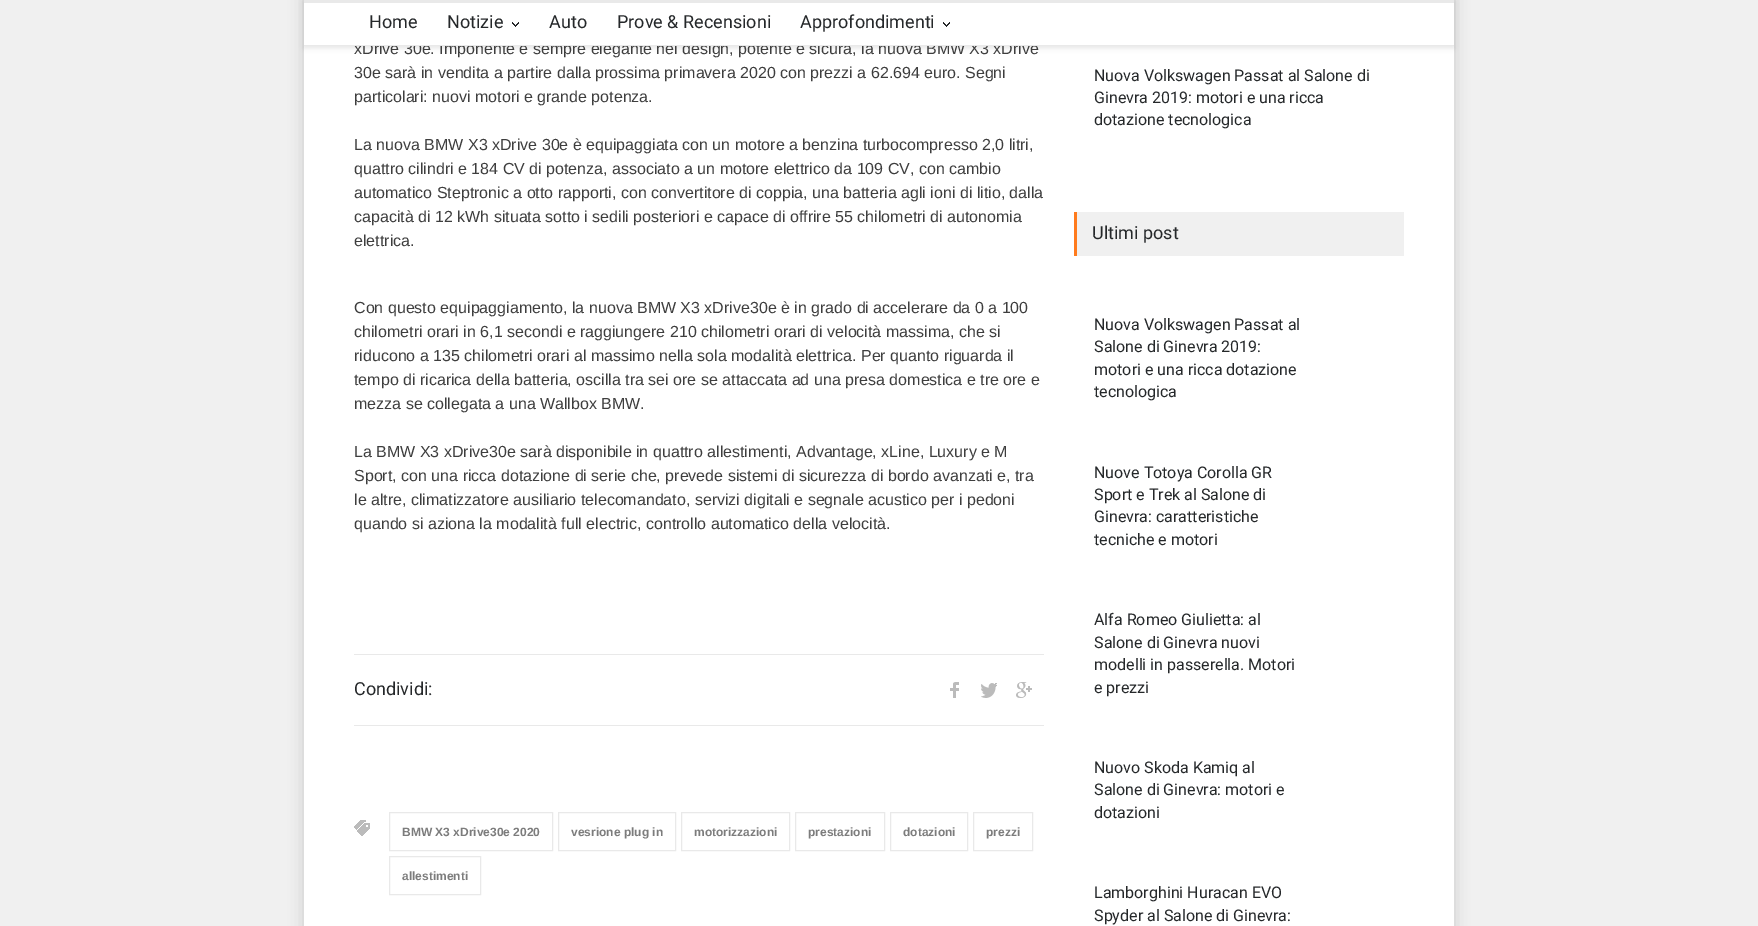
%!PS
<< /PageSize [1758 926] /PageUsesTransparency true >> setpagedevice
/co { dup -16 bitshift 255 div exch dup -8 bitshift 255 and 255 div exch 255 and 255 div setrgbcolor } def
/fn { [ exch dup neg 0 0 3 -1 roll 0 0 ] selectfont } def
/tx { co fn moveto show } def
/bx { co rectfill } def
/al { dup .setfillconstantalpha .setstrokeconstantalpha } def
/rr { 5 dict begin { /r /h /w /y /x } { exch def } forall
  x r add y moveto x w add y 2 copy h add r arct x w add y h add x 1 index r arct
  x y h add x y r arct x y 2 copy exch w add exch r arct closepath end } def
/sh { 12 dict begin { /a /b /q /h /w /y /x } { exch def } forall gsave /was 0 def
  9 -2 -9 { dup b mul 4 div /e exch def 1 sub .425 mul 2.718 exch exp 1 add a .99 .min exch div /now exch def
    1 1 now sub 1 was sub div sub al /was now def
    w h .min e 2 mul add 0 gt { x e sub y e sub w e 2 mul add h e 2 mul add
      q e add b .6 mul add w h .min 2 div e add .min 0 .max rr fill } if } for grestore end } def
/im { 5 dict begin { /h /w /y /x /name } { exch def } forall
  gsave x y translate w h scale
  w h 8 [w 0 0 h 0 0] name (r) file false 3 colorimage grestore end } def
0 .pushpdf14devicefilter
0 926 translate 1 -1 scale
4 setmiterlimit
0 0 1758 926 16#F0F0F0 bx
16#000000 co
304 -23 1150 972 0 7.5 .15 sh
304 46 1150 880 16#FFFFFF bx
16#000000 co
304 2 1150 46 0 2.5 .1 sh
304 0 1150 3 16#E9E9E9 bx
354 654 690 1 16#E9E9E9 bx
354 725 690 1 16#E9E9E9 bx
(media/2.raw) 950 682 9 16 im
(media/3.raw) 981 683 16 15 im
(media/4.raw) 1016 682 16 16 im
(media/5.raw) 354 820 16 16 im
389.5 812.5 163 38 rectstroke
558.5 812.5 117 38 rectstroke
681.5 812.5 108 38 rectstroke
795.5 812.5 89 38 rectstroke
890.5 812.5 77 38 rectstroke
973.5 812.5 59 38 rectstroke
389.5 856.5 91 38 rectstroke
1077 212 327 44 16#F0F0F0 bx
1074 212 3 44 16#FF7B1D bx
(xDrive 30e. Imponente e sempre elegante nel design, potente e sicura, la nuova BMW X3 xDrive) 354 54 /LiberationSans-Regular 16 16#3E3E3E tx
304 3 1150 42 16#FFFFFF bx
(Approfondimenti) 800 28 /Roboto-Regular 18 16#25282A tx
(media/1.raw) 943 22 7 5 im
(Prove & Recensioni) 617 28 /Roboto-Regular 18 16#25282A tx
(Auto) 549 28 /Roboto-Regular 18 16#25282A tx
(Notizie) 447 28 /Roboto-Regular 18 16#25282A tx
(media/1.raw) 512 22 7 5 im
(Home) 369 28 /Roboto-Regular 18 16#25282A tx
304 45 1150 1 16#E9E9E9 bx
(30e sarà in vendita a partire dalla prossima primavera 2020 con prezzi a 62.694 euro. Segni) 354 78 /LiberationSans-Regular 16 16#3E3E3E tx
(particolari: nuovi motori e grande potenza.) 354 102 /LiberationSans-Regular 16 16#3E3E3E tx
(La nuova BMW X3 xDrive 30e è equipaggiata con un motore a benzina turbocompresso 2,0 litri,) 354 150 /LiberationSans-Regular 16 16#3E3E3E tx
(quattro cilindri e 184 CV di potenza, associato a un motore elettrico da 109 CV, con cambio) 354 174 /LiberationSans-Regular 16 16#3E3E3E tx
(automatico Steptronic a otto rapporti, con convertitore di coppia, una batteria agli ioni di litio, dalla) 354 198 /LiberationSans-Regular 16 16#3E3E3E tx
(capacità di 12 kWh situata sotto i sedili posteriori e capace di offrire 55 chilometri di autonomia) 354 222 /LiberationSans-Regular 16 16#3E3E3E tx
(elettrica.) 354 246 /LiberationSans-Regular 16 16#3E3E3E tx
(Con questo equipaggiamento, la nuova BMW X3 xDrive30e è in grado di accelerare da 0 a 100) 354 313 /LiberationSans-Regular 16 16#3E3E3E tx
(chilometri orari in 6,1 secondi e raggiungere 210 chilometri orari di velocità massima, che si) 354 337 /LiberationSans-Regular 16 16#3E3E3E tx
(riducono a 135 chilometri orari al massimo nella sola modalità elettrica. Per quanto riguarda il) 354 361 /LiberationSans-Regular 16 16#3E3E3E tx
(tempo di ricarica della batteria, oscilla tra sei ore se attaccata ad una presa domestica e tre ore e) 354 385 /LiberationSans-Regular 16 16#3E3E3E tx
(mezza se collegata a una Wallbox BMW.) 354 409 /LiberationSans-Regular 16 16#3E3E3E tx
(La BMW X3 xDrive30e sarà disponibile in quattro allestimenti, Advantage, xLine, Luxury e M) 354 457 /LiberationSans-Regular 16 16#3E3E3E tx
(Sport, con una ricca dotazione di serie che, prevede sistemi di sicurezza di bordo avanzati e, tra) 354 481 /LiberationSans-Regular 16 16#3E3E3E tx
(le altre, climatizzatore ausiliario telecomandato, servizi digitali e segnale acustico per i pedoni) 354 505 /LiberationSans-Regular 16 16#3E3E3E tx
(quando si aziona la modalità full electric, controllo automatico della velocità.) 354 529 /LiberationSans-Regular 16 16#3E3E3E tx
(Condividi:) 354 695 /Roboto-Regular 18 16#25282A tx
(BMW X3 xDrive30e 2020) 402 836 /LiberationSans-Bold 12 16#7C7C7C tx
(vesrione plug in) 571 836 /LiberationSans-Bold 12 16#7C7C7C tx
(motorizzazioni) 694 836 /LiberationSans-Bold 12 16#7C7C7C tx
(prestazioni) 808 836 /LiberationSans-Bold 12 16#7C7C7C tx
(dotazioni) 903 836 /LiberationSans-Bold 12 16#7C7C7C tx
(prezzi) 986 836 /LiberationSans-Bold 12 16#7C7C7C tx
(allestimenti) 402 880 /LiberationSans-Bold 12 16#7C7C7C tx
(Nuova Volkswagen Passat al Salone di) 1094 81 /Roboto-Regular 16 16#25282A tx
(Ginevra 2019: motori e una ricca) 1094 103 /Roboto-Regular 16 16#25282A tx
(dotazione tecnologica) 1094 125 /Roboto-Regular 16 16#25282A tx
(Ultimi post) 1092 239 /Roboto-Regular 18 16#25282A tx
(Nuova Volkswagen Passat al) 1094 330 /Roboto-Regular 16 16#25282A tx
(Salone di Ginevra 2019:) 1094 352 /Roboto-Regular 16 16#25282A tx
(motori e una ricca dotazione) 1094 375 /Roboto-Regular 16 16#25282A tx
(tecnologica) 1094 397 /Roboto-Regular 16 16#25282A tx
(Nuove Totoya Corolla GR) 1094 478 /Roboto-Regular 16 16#25282A tx
(Sport e Trek al Salone di) 1094 500 /Roboto-Regular 16 16#25282A tx
(Ginevra: caratteristiche) 1094 522 /Roboto-Regular 16 16#25282A tx
(tecniche e motori) 1094 545 /Roboto-Regular 16 16#25282A tx
(Alfa Romeo Giulietta: al) 1094 625 /Roboto-Regular 16 16#25282A tx
(Salone di Ginevra nuovi) 1094 648 /Roboto-Regular 16 16#25282A tx
(modelli in passerella. Motori) 1094 670 /Roboto-Regular 16 16#25282A tx
(e prezzi) 1094 693 /Roboto-Regular 16 16#25282A tx
(Nuovo Skoda Kamiq al) 1094 773 /Roboto-Regular 16 16#25282A tx
(Salone di Ginevra: motori e) 1094 795 /Roboto-Regular 16 16#25282A tx
(dotazioni) 1094 818 /Roboto-Regular 16 16#25282A tx
(Lamborghini Huracan EVO) 1094 898 /Roboto-Regular 16 16#25282A tx
(Spyder al Salone di Ginevra:) 1094 921 /Roboto-Regular 16 16#25282A tx
.poppdf14devicefilter showpage
